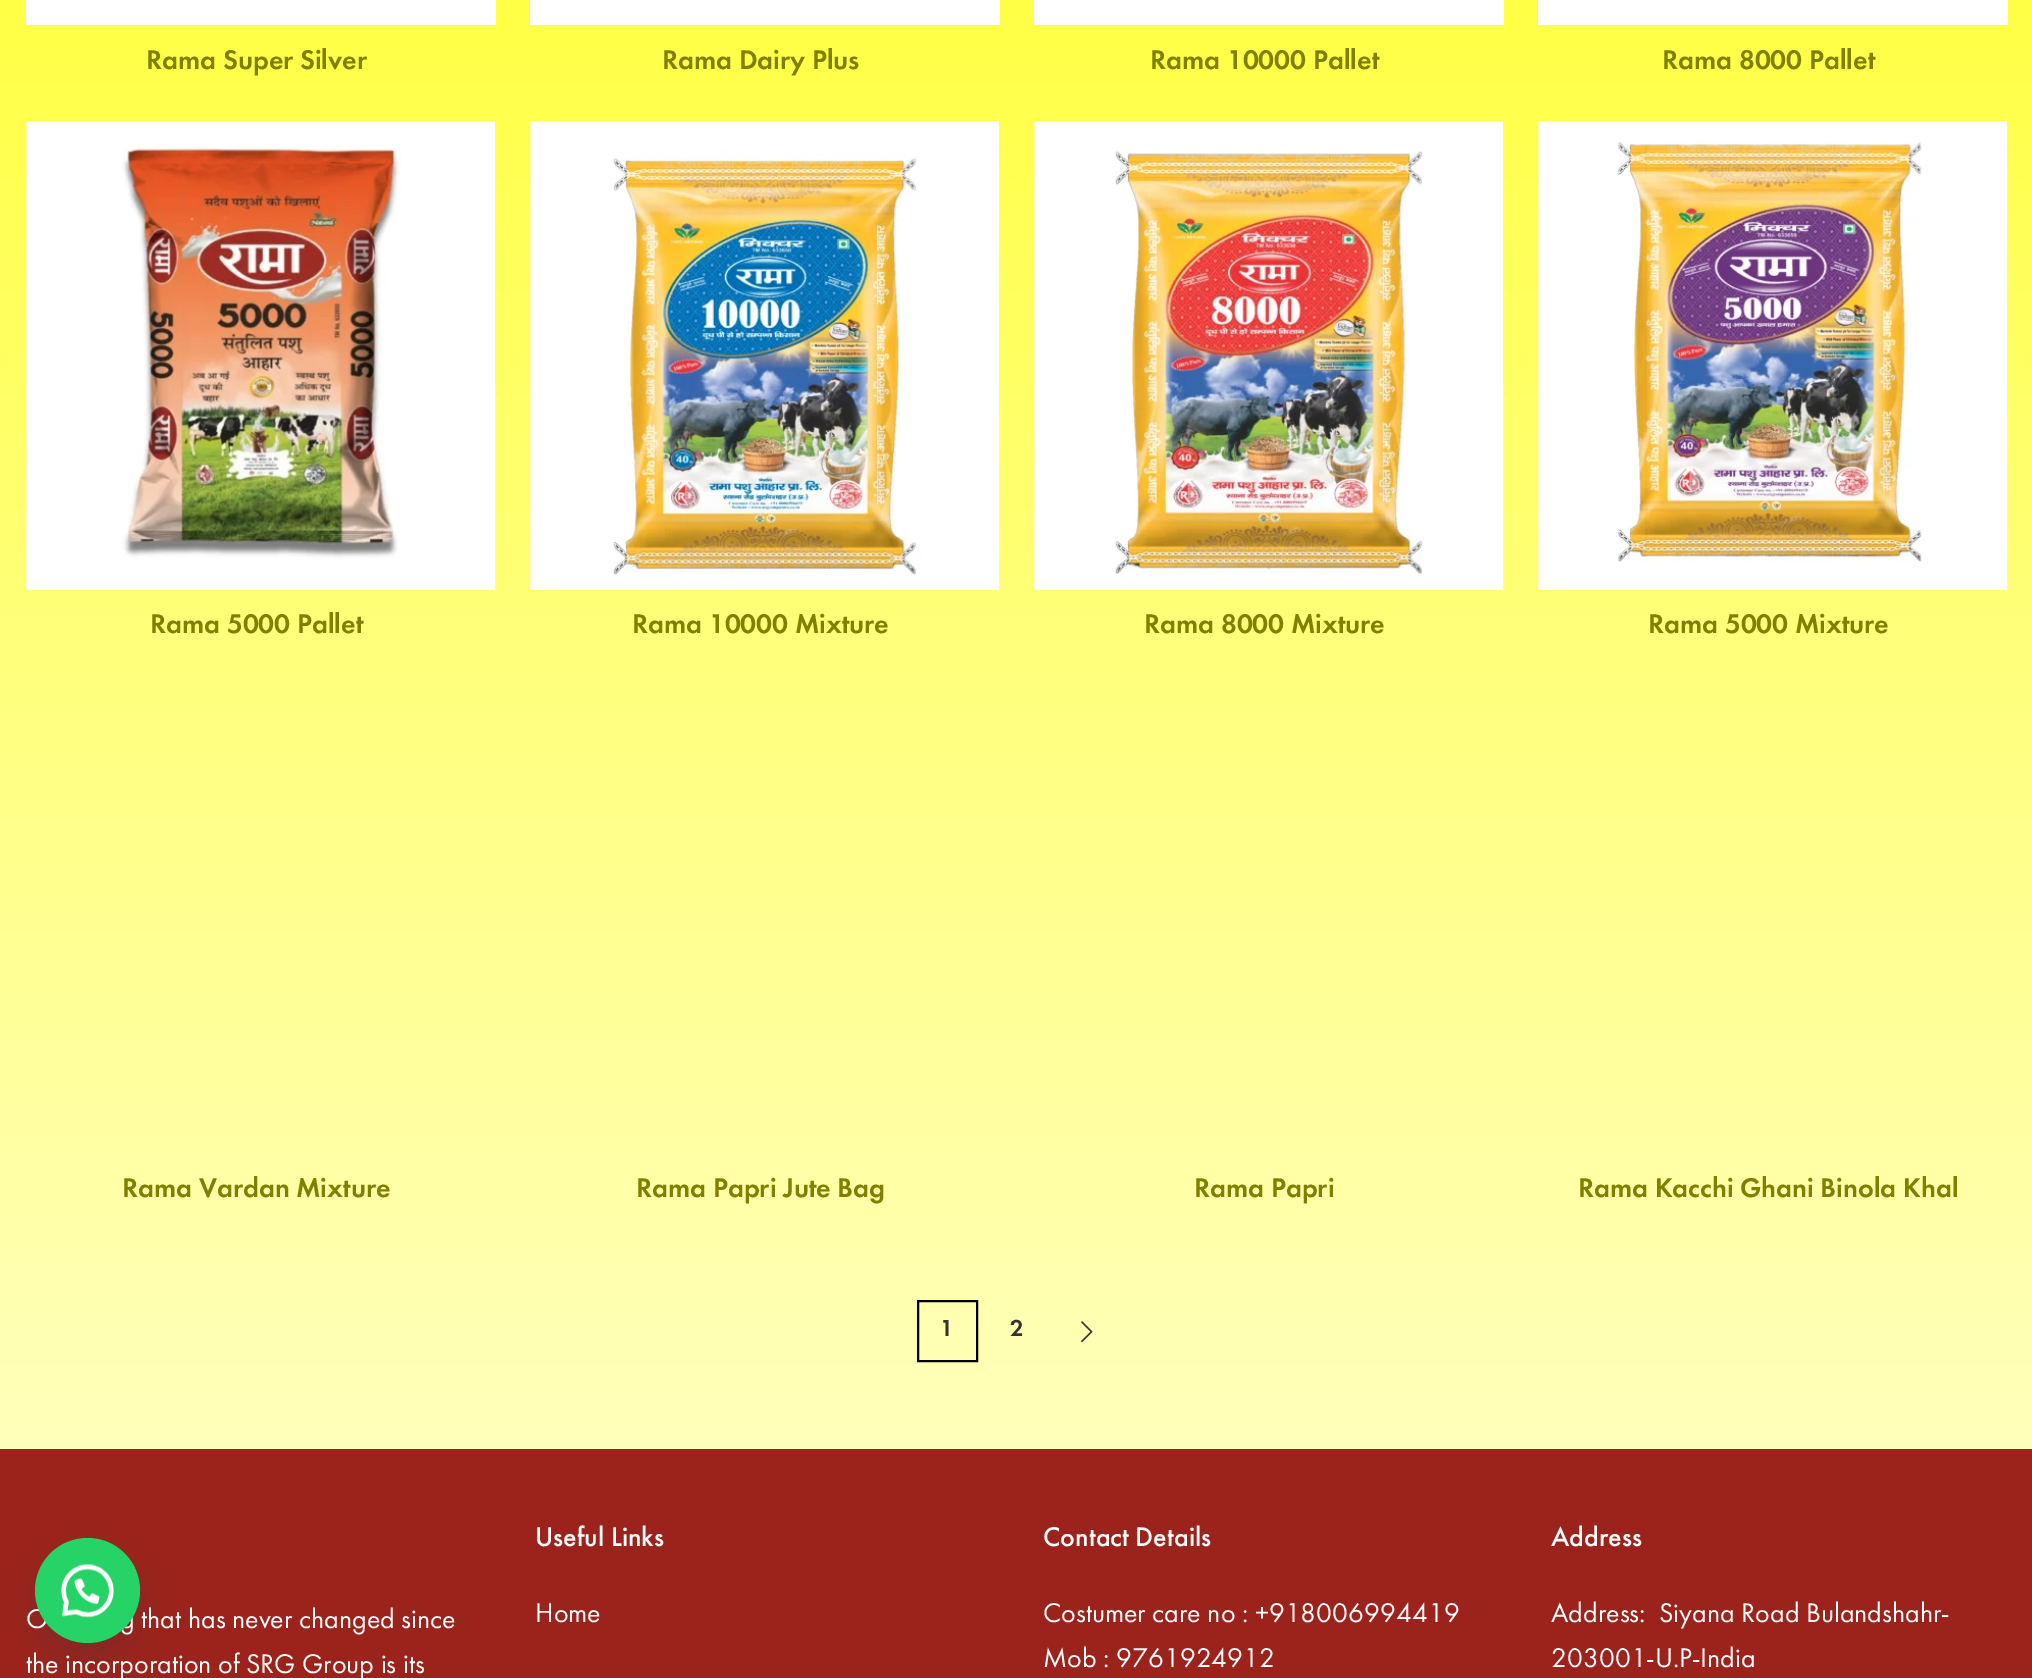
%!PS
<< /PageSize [2032 1678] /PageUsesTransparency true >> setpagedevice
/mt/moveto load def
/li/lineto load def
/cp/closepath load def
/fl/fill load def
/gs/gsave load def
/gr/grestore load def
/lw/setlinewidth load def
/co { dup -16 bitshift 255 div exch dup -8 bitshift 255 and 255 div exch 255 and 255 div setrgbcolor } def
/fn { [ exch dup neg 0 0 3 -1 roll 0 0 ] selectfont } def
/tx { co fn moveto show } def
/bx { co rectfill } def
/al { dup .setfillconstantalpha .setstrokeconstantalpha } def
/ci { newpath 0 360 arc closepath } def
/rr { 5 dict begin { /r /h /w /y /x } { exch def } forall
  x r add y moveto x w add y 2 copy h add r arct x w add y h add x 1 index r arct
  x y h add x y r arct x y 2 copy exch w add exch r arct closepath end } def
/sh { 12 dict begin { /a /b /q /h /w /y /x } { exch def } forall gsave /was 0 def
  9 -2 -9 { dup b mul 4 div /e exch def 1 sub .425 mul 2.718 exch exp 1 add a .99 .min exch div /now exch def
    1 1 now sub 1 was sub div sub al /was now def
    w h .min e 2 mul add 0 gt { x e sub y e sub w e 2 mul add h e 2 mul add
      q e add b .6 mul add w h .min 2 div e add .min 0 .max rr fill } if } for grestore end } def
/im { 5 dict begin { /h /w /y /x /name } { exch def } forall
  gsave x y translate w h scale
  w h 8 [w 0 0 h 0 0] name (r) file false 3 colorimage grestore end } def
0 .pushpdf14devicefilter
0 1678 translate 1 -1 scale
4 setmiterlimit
0 0 2032 1678 16#FFFFFF bx
gs 0 0 mt 2032 0 li 2032 1449 li 0 1449 li cp clip newpath
<< /ShadingType 2 /ColorSpace /DeviceRGB /Coords [1017 -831 1017 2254] /Extend [true true] /Function << /FunctionType 2 /Domain [0 1] /C0 [1 1 0] /C1 [1 1 1] /N 1 >> >> shfill gr
26 0 470 25 16#FFFFFF bx
530 0 470 25 16#FFFFFF bx
1034 0 470 25 16#FFFFFF bx
1538 0 470 25 16#FFFFFF bx
(media/1.raw) 26 121 470 469 im
(media/2.raw) 530 121 470 469 im
(media/3.raw) 1034 121 470 469 im
(media/4.raw) 1538 121 470 469 im
16#000000 co
2 lw
918 1301 59 60 rectstroke
(media/5.raw) 1081 1321 12 22 im
0 1449 2032 229 16#9C231B bx
16#2D3E4F co
44 1561 87 88 43.5 22 .3 sh
(Rama Super Silver) 146 69 /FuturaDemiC-SemiBold 28 16#808000 tx
(Rama Dairy Plus) 662 69 /FuturaDemiC-SemiBold 28 16#808000 tx
(Rama 10000 Pallet) 1150 69 /FuturaDemiC-SemiBold 28 16#808000 tx
(Rama 8000 Pallet) 1662 69 /FuturaDemiC-SemiBold 28 16#808000 tx
(Rama 5000 Pallet) 150 633 /FuturaDemiC-SemiBold 28 16#808000 tx
(Rama 10000 Mixture) 632 633 /FuturaDemiC-SemiBold 28 16#808000 tx
(Rama 8000 Mixture) 1144 633 /FuturaDemiC-SemiBold 28 16#808000 tx
(Rama 5000 Mixture) 1648 633 /FuturaDemiC-SemiBold 28 16#808000 tx
(Rama Vardan Mixture) 122 1197 /FuturaDemiC-SemiBold 28 16#808000 tx
(Rama Papri Jute Bag) 636 1197 /FuturaDemiC-SemiBold 28 16#808000 tx
(Rama Papri) 1194 1197 /FuturaDemiC-SemiBold 28 16#808000 tx
(Rama Kacchi Ghani Binola Khal) 1578 1197 /FuturaDemiC-SemiBold 28 16#808000 tx
(1) 940 1336 /FuturaDemiC-SemiBold 24 16#333333 tx
(2) 1010 1336 /FuturaDemiC-SemiBold 24 16#333333 tx
(O) 26 1628 /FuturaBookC-Regular 28 16#FFFFFF tx
(g that has never changed since) 120 1628 /FuturaBookC-Regular 28 16#FFFFFF tx
16#25D366 co
87.5 1590.5 52.5 ci fl
(media/6.raw) 61 1564 53 54 im
(the incorporation of SRG Group is its) 26 1673 /FuturaBookC-Regular 28 16#FFFFFF tx
(Useful Links) 535 1546 /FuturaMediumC-Medium 28 16#FFFFFF tx
(Home) 535 1622 /FuturaBookC-Regular 28 16#FFFFFF tx
(Contact Details) 1043 1546 /FuturaMediumC-Medium 28 16#FFFFFF tx
(Costumer care no : +918006994419) 1043 1622 /FuturaBookC-Regular 28 16#FFFFFF tx
(Mob : 9761924912) 1043 1667 /FuturaBookC-Regular 28 16#FFFFFF tx
(Address) 1551 1546 /FuturaMediumC-Medium 28 16#FFFFFF tx
(Address:  Siyana Road Bulandshahr-) 1551 1622 /FuturaBookC-Regular 28 16#FFFFFF tx
(203001-U.P-India) 1551 1667 /FuturaBookC-Regular 28 16#FFFFFF tx
.poppdf14devicefilter showpage
